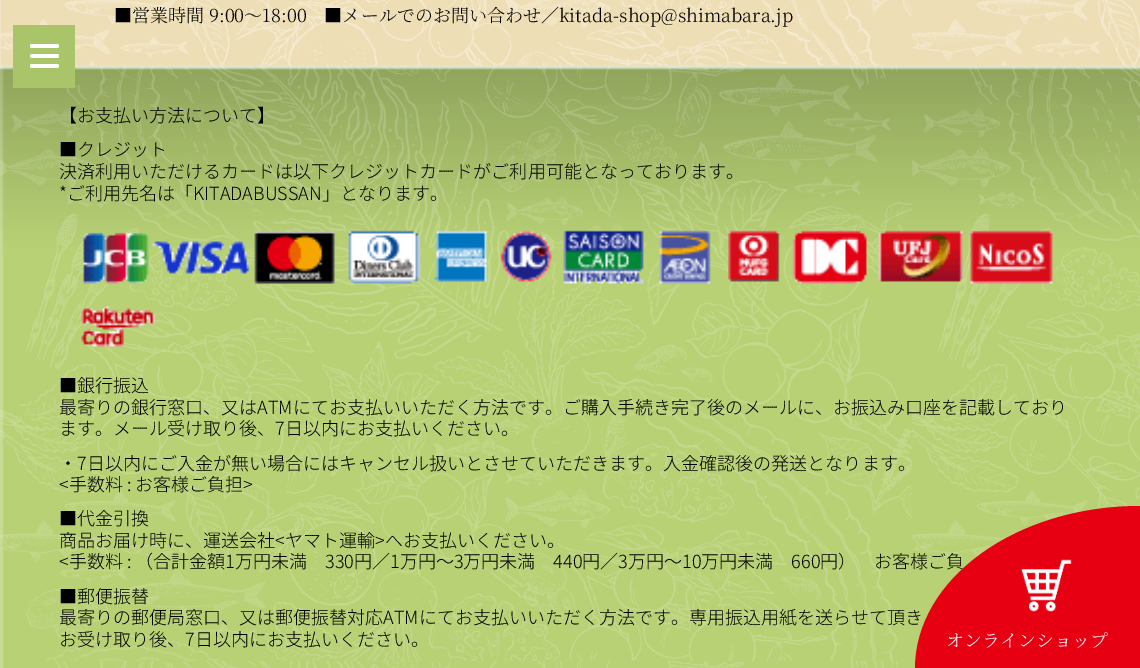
%!PS
<< /PageSize [1140 668] >> setpagedevice
/mt/moveto load def
/li/lineto load def
/ct/curveto load def
/cp/closepath load def
/fl/fill load def
/co { dup -16 bitshift 255 div exch dup -8 bitshift 255 and 255 div exch 255 and 255 div setrgbcolor } def
/fn { [ exch dup neg 0 0 3 -1 roll 0 0 ] selectfont } def
/tx { co fn moveto show } def
/bx { co rectfill } def
/rr { 5 dict begin { /r /h /w /y /x } { exch def } forall
  x r add y moveto x w add y 2 copy h add r arct x w add y h add x 1 index r arct
  x y h add x y r arct x y 2 copy exch w add exch r arct closepath end } def
/im { 5 dict begin { /h /w /y /x /name } { exch def } forall
  gsave x y translate w h scale
  w h 8 [w 0 0 h 0 0] name (r) file false 3 colorimage grestore end } def
0 668 translate 1 -1 scale
4 setmiterlimit
0 0 1140 668 16#FBFBFB bx
(media/1.raw) 0 0 1140 66 im
(media/2.raw) 0 65 1140 603 im
(media/3.raw) 81 230 972 117 im
13 25 62 63 16#AAC569 bx
16#FFFFFF co
30 44 29 4 2 rr fl
30 54 29 4 2 rr fl
30 64 29 4 2 rr fl
(■営業時間 9:00〜18:00　■メールでのお問い合わせ／kitada-shop@shimabara.jp) 114 22 /NotoSerifJP-ExtraLight 18.02 16#000000 tx
(【お支払い方法について】) 59 122 /NotoSansJP-Thin 18.02 16#000000 tx
(■クレジット) 59 156 /NotoSansJP-Thin 18.02 16#000000 tx
(決済利用いただけるカードは以下クレジットカードがご利用可能となっております。) 59 178 /NotoSansJP-Thin 18.02 16#000000 tx
(*ご利用先名は「KITADABUSSAN」となります。) 59 200 /NotoSansJP-Thin 18.02 16#000000 tx
(■銀行振込) 59 392 /NotoSansJP-Thin 18.02 16#000000 tx
(最寄りの銀行窓口、又はATMにてお支払いいただく方法です。ご購入手続き完了後のメールに、お振込み口座を記載しており) 59 414 /NotoSansJP-Thin 18.02 16#000000 tx
(ます。メール受け取り後、7日以内にお支払いください。) 59 435 /NotoSansJP-Thin 18.02 16#000000 tx
(・7日以内にご入金が無い場合にはキャンセル扱いとさせていただきます。入金確認後の発送となります。) 59 470 /NotoSansJP-Thin 18.02 16#000000 tx
(<手数料 : お客様ご負担>) 59 491 /NotoSansJP-Thin 18.02 16#000000 tx
(■代金引換) 59 525 /NotoSansJP-Thin 18.02 16#000000 tx
(商品お届け時に、運送会社<ヤマト運輸>へお支払いください。) 59 547 /NotoSansJP-Thin 18.02 16#000000 tx
(<手数料 : （合計金額1万円未満　330円／1万円～3万円未満　440円／3万円～10万円未満　660円）　お客様ご負) 59 568 /NotoSansJP-Thin 18.02 16#000000 tx
(■郵便振替) 59 603 /NotoSansJP-Thin 18.02 16#000000 tx
(最寄りの郵便局窓口、又は郵便振替対応ATMにてお支払いいただく方法です。専用振込用紙を送らせて頂き) 59 624 /NotoSansJP-Thin 18.02 16#000000 tx
(お受け取り後、7日以内にお支払いください。) 59 646 /NotoSansJP-Thin 18.02 16#000000 tx
16#E60012 co
1140 506 mt 1140 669 li 915 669 li 915 579 1016 506 1140 506 ct cp fl
(media/4.raw) 1021 559 51 53 im
(オンラインショップ) 946 647 /NotoSerifJP-ExtraLight 18.02 16#FFFFFF tx
showpage
